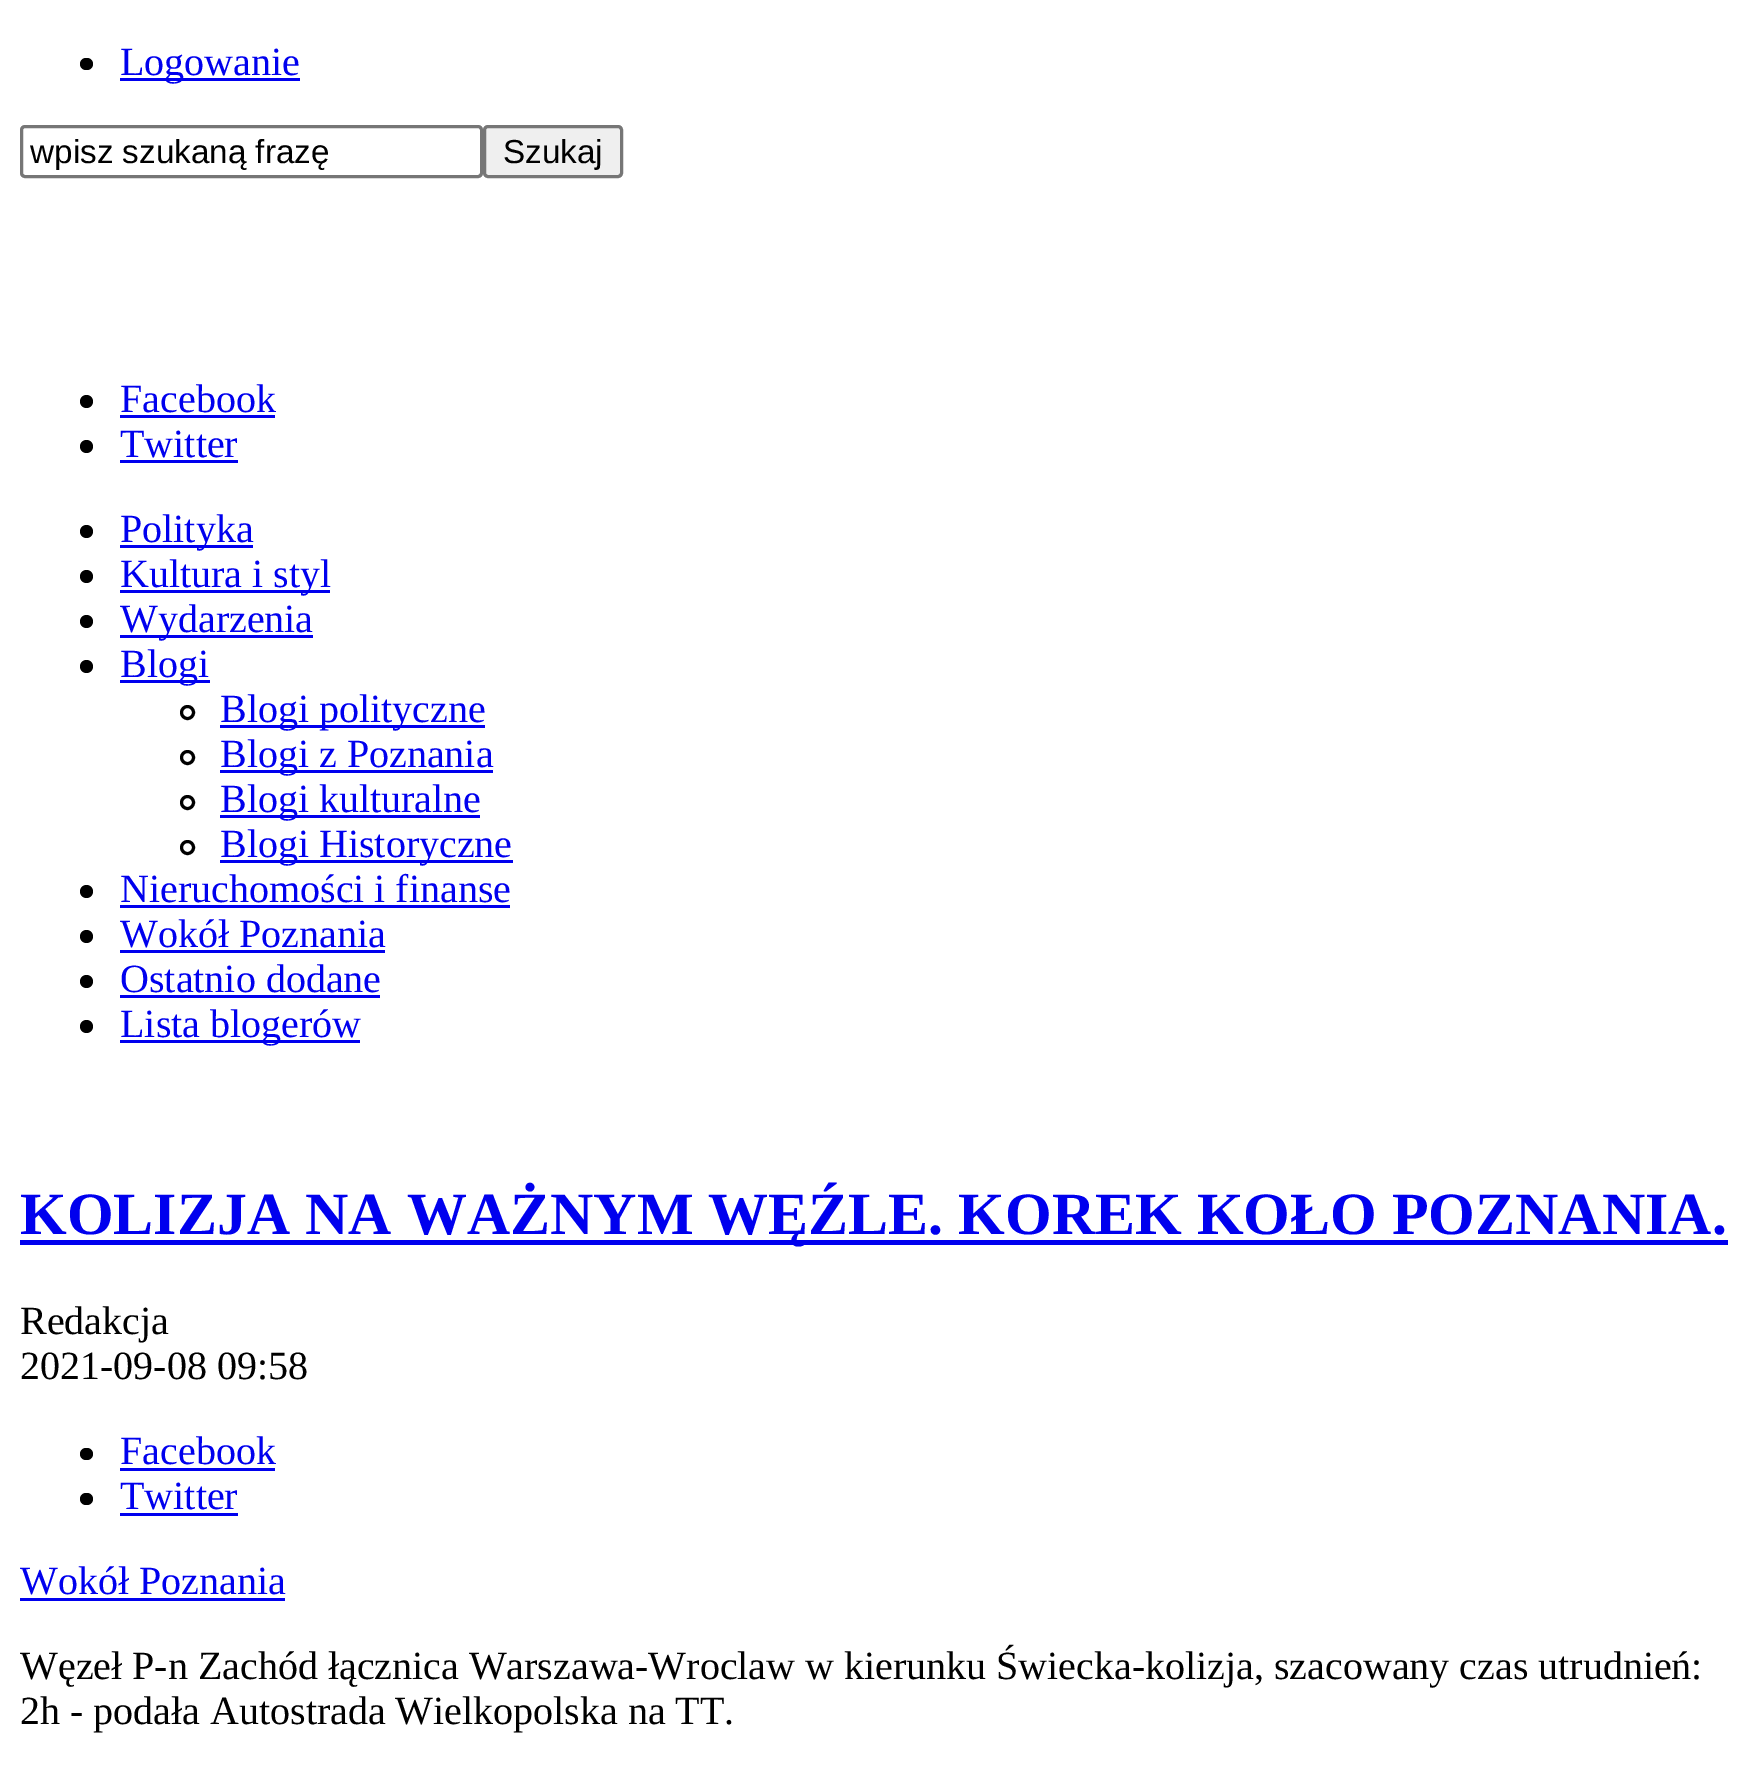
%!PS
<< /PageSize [1764 1786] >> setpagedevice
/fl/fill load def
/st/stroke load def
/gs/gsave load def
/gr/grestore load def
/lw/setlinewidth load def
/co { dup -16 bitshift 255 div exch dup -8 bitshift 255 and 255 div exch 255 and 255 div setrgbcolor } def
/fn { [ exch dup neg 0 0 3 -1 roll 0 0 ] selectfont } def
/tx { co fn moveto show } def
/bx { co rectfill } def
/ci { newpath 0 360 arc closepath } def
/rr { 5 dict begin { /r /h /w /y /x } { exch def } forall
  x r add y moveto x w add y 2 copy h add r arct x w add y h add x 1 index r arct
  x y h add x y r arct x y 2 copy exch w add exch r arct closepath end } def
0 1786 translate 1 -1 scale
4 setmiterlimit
0 0 1764 1786 16#FFFFFF bx
16#000000 co
80 58 13 12 6 rr fl
120 78 180 3 16#0000EE bx
16#767676 co
3 lw
21.5 126.5 460 50 3.5 rr st
16#EFEFEF co
484.5 126.5 137 50 3.5 rr gs fl gr
16#767676 co
st
16#000000 co
86.5 401.5 6.5 ci fl
120 415 155 3 16#0000EE bx
16#000000 co
86.5 446.5 6.5 ci fl
120 460 118 3 16#0000EE bx
16#000000 co
86.5 531.5 6.5 ci fl
120 545 133 3 16#0000EE bx
16#000000 co
86.5 576.5 6.5 ci fl
120 590 210 3 16#0000EE bx
16#000000 co
86.5 621.5 6.5 ci fl
120 635 193 3 16#0000EE bx
16#000000 co
86.5 666.5 6.5 ci fl
120 680 90 3 16#0000EE bx
16#000000 co
187.5 712.5 6 ci st
220 725 265 3 16#0000EE bx
16#000000 co
187.5 757.5 6 ci st
220 770 273 3 16#0000EE bx
16#000000 co
187.5 802.5 6 ci st
220 815 260 3 16#0000EE bx
16#000000 co
187.5 847.5 6 ci st
220 860 293 3 16#0000EE bx
16#000000 co
86.5 891.5 6.5 ci fl
120 905 390 3 16#0000EE bx
16#000000 co
86.5 936.5 6.5 ci fl
120 950 265 3 16#0000EE bx
16#000000 co
86.5 981.5 6.5 ci fl
120 995 260 3 16#0000EE bx
16#000000 co
86.5 1026.5 6.5 ci fl
120 1040 240 3 16#0000EE bx
20 1240 1708 5 16#0000EE bx
16#000000 co
80 1448 13 12 6 rr fl
120 1468 155 3 16#0000EE bx
16#000000 co
80 1493 13 12 6 rr fl
120 1513 118 3 16#0000EE bx
20 1598 265 3 16#0000EE bx
(Logowanie) 120 75 /LiberationSerif-Regular 40 16#0000EE tx
(wpisz szukaną frazę) 30 163 /LiberationSans-Regular 33.25 16#000000 tx
(Szukaj) 503 163 /LiberationSans-Regular 33.25 16#000000 tx
(Facebook) 120 412 /LiberationSerif-Regular 40 16#0000EE tx
(Twitter) 120 457 /LiberationSerif-Regular 40 16#0000EE tx
(Polityka) 120 542 /LiberationSerif-Regular 40 16#0000EE tx
(Kultura i styl) 120 587 /LiberationSerif-Regular 40 16#0000EE tx
(Wydarzenia) 120 632 /LiberationSerif-Regular 40 16#0000EE tx
(Blogi) 120 677 /LiberationSerif-Regular 40 16#0000EE tx
(Blogi polityczne) 220 722 /LiberationSerif-Regular 40 16#0000EE tx
(Blogi z Poznania) 220 767 /LiberationSerif-Regular 40 16#0000EE tx
(Blogi kulturalne) 220 812 /LiberationSerif-Regular 40 16#0000EE tx
(Blogi Historyczne) 220 857 /LiberationSerif-Regular 40 16#0000EE tx
(Nieruchomości i finanse) 120 902 /LiberationSerif-Regular 40 16#0000EE tx
(Wokół Poznania) 120 947 /LiberationSerif-Regular 40 16#0000EE tx
(Ostatnio dodane) 120 992 /LiberationSerif-Regular 40 16#0000EE tx
(Lista blogerów) 120 1037 /LiberationSerif-Regular 40 16#0000EE tx
(KOLIZJA NA WAŻNYM WĘŹLE. KOREK KOŁO POZNANIA.) 20 1234 /LiberationSerif-Bold 60 16#0000EE tx
(Redakcja) 20 1334 /LiberationSerif-Regular 40 16#000000 tx
(2021-09-08 09:58) 20 1379 /LiberationSerif-Regular 40 16#000000 tx
(Facebook) 120 1464 /LiberationSerif-Regular 40 16#0000EE tx
(Twitter) 120 1509 /LiberationSerif-Regular 40 16#0000EE tx
(Wokół Poznania) 20 1594 /LiberationSerif-Regular 40 16#0000EE tx
(Węzeł P-n Zachód łącznica Warszawa-Wroclaw w kierunku Świecka-kolizja, szacowany czas utrudnień:) 20 1679 /LiberationSerif-Regular 40 16#000000 tx
(2h - podała Autostrada Wielkopolska na TT.) 20 1724 /LiberationSerif-Regular 40 16#000000 tx
showpage
